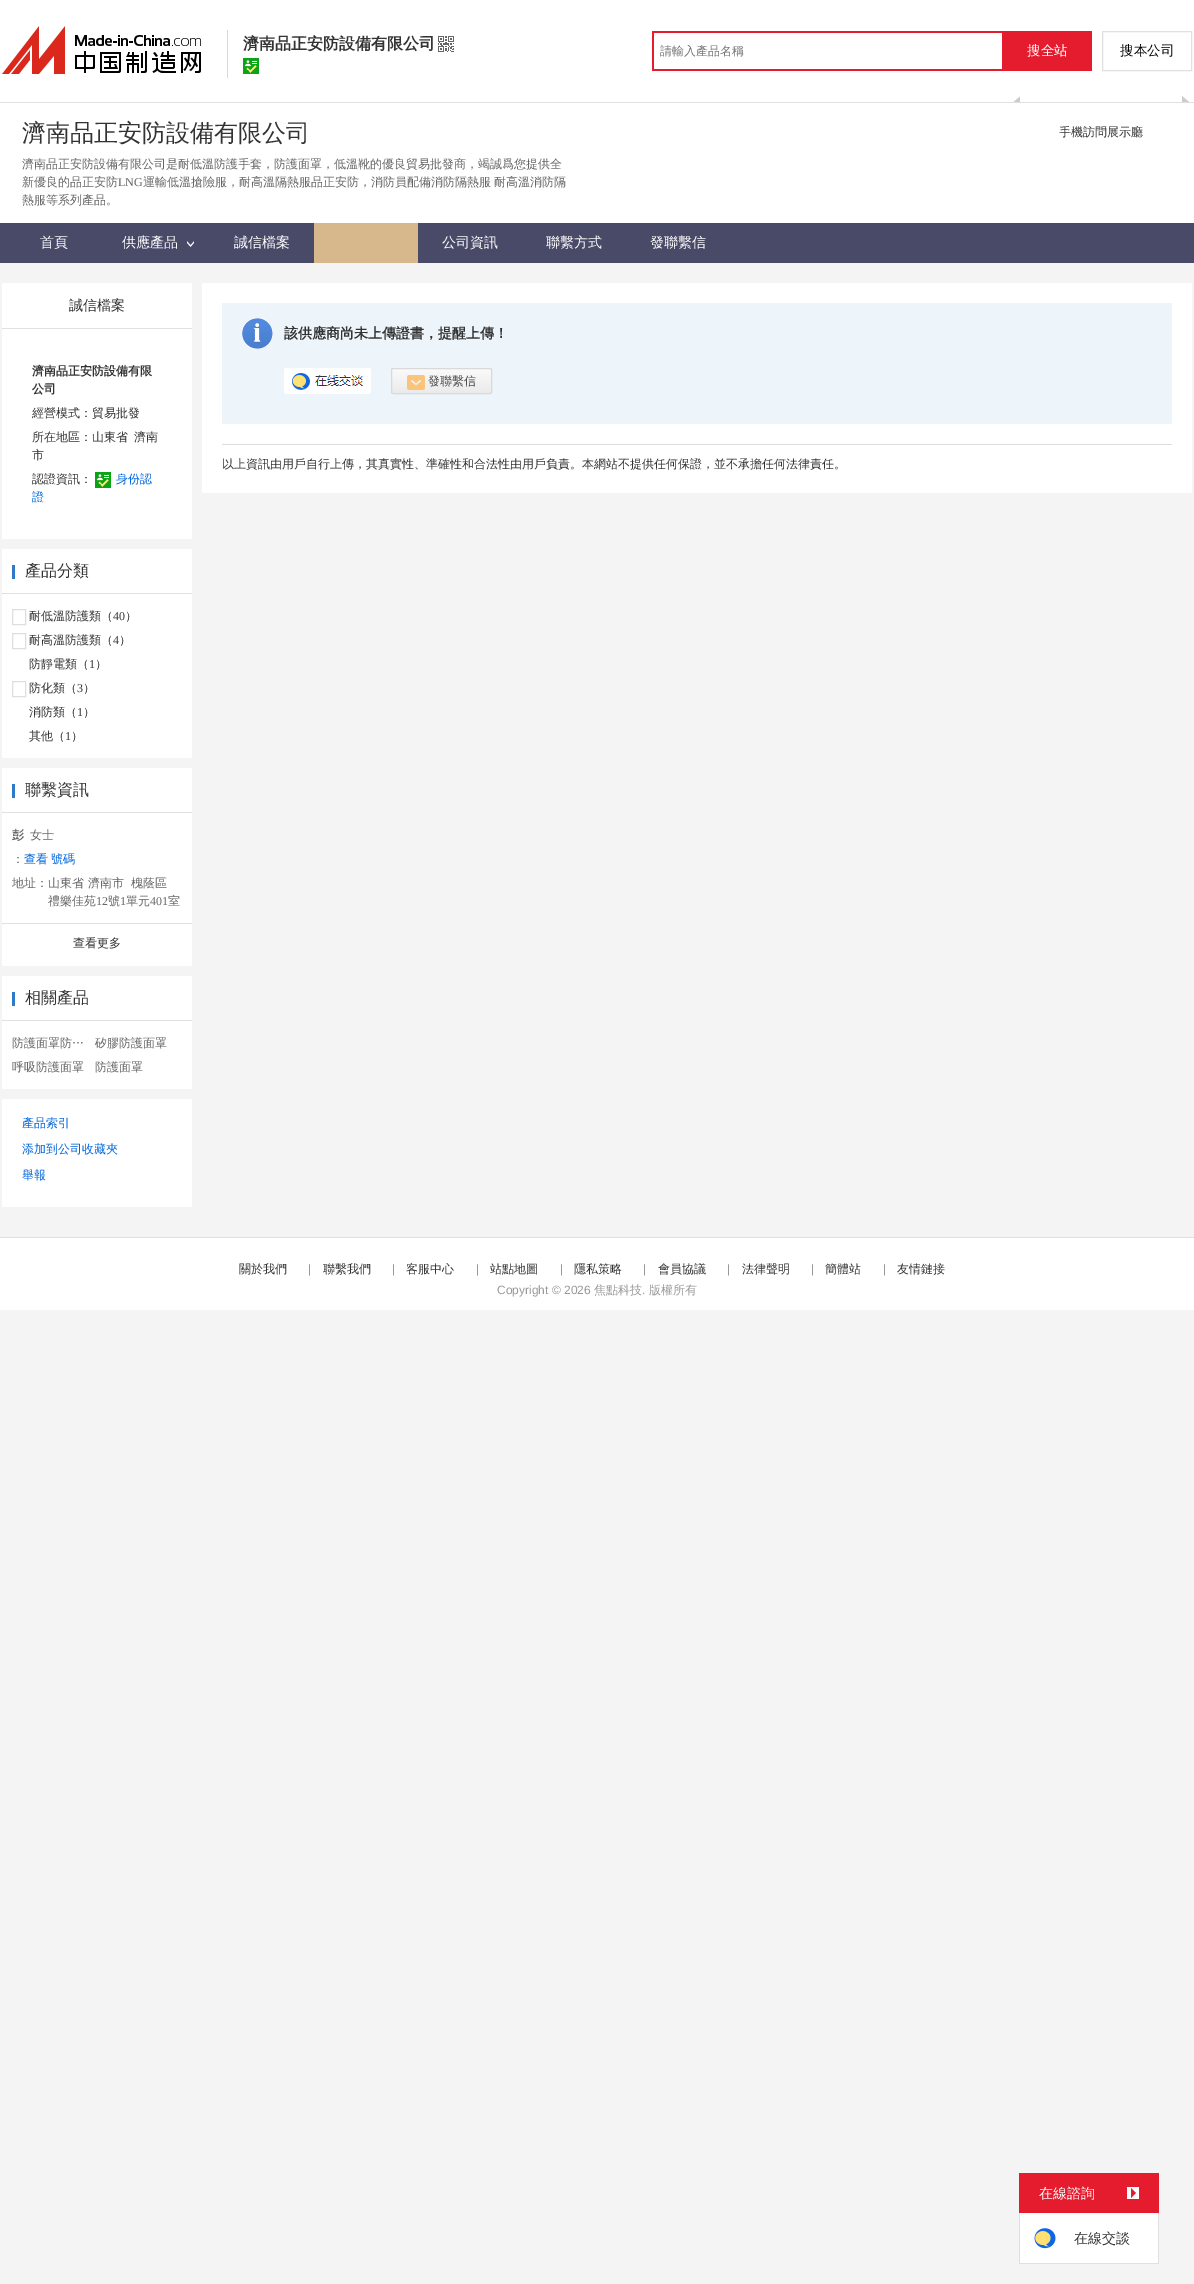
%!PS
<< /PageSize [1194 2284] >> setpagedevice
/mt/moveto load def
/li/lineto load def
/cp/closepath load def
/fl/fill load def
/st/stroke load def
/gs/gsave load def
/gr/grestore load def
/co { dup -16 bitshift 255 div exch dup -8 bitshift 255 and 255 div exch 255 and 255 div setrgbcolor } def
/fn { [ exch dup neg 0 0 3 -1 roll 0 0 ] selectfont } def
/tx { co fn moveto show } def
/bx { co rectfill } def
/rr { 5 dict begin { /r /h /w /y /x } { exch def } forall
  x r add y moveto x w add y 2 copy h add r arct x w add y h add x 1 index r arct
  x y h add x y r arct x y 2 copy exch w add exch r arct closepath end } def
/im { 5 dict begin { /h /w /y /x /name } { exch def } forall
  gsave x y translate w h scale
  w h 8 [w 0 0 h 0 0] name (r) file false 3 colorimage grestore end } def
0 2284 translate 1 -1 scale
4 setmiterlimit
0 0 1194 2284 16#F4F4F4 bx
0 0 1194 102 16#FFFFFF bx
(media/1.raw) 2 26 199 48 im
227 30 1 48 16#D9D9D9 bx
(media/2.raw) 438 36 16 16 im
(media/3.raw) 243 58 16 16 im
652 31 350 2 16#E41C2E bx
652 69 350 2 16#E41C2E bx
652 31 2 40 16#E41C2E bx
1002 31 90 40 16#E41C2E bx
16#E0E0E0 co
1102.5 31.5 89 39 rectstroke
0 103 1194 120 16#FFFFFF bx
0 102 1194 1 16#E0E0E0 bx
16#CCCCCC co
1020 102 mt 1013 102 li 1020 96 li cp fl
16#FFFFFF co
1013 102 mt 1013 96 li 1020 96 li cp fl
16#CCCCCC co
1189 102 mt 1182 102 li 1182 96 li cp fl
0 223 1194 40 16#494A67 bx
(media/4.raw) 187 241 7 6 im
314 223 104 40 16#D6B88C bx
2 283 190 256 16#FFFFFF bx
2 328 190 1 16#E0E0E0 bx
(media/3.raw) 95 472 16 16 im
2 549 190 209 16#FFFFFF bx
2 593 190 1 16#E0E0E0 bx
12 565 3 14 16#2F78CA bx
16#DFDFDF co
12.5 609.5 13 15 rectstroke
12.5 633.5 13 15 rectstroke
12.5 681.5 13 15 rectstroke
2 768 190 198 16#FFFFFF bx
2 812 190 1 16#E0E0E0 bx
12 784 3 14 16#2F78CA bx
2 923 190 1 16#E0E0E0 bx
2 976 190 113 16#FFFFFF bx
2 1020 190 1 16#E0E0E0 bx
12 992 3 14 16#2F78CA bx
2 1099 190 108 16#FFFFFF bx
202 283 990 210 16#FFFFFF bx
222 303 950 121 16#EDF4FA bx
(media/5.raw) 242 318 31 31 im
(media/6.raw) 284 368 87 26 im
gs
391 368 101 26 2 rr clip newpath
gs 391 369 mt 492 369 li 492 393 li 391 393 li cp clip newpath
<< /ShadingType 2 /ColorSpace /DeviceRGB /Coords [442 369 442 393] /Extend [true true] /Function << /FunctionType 2 /Domain [0 1] /C0 [.98 .98 .98] /C1 [.922 .922 .922] /N 1 >> >> shfill gr
gr
16#D9D9D9 co
391.5 368.5 100 25 1.5 rr st
(media/7.raw) 407 375 18 15 im
222 444 950 1 16#DDDDDD bx
0 1238 1194 72 16#FFFFFF bx
0 1237 1194 1 16#E0E0E0 bx
1019 2173 140 40 16#E41C2E bx
1127 2187 12 12 16#FFFFFF bx
16#E41C2E co
1131 2198 mt 1131 2188 li 1136 2193 li cp fl
1020 2213 138 50 16#FFFFFF bx
1158 2213 1 51 16#E0E0E0 bx
1019 2263 140 1 16#E0E0E0 bx
1019 2213 1 51 16#E0E0E0 bx
(media/8.raw) 1034 2228 22 21 im
(濟南品正安防設備有限公司) 243 49 /WenQuanYiZenHei-Bold 16 16#333333 tx
(請輸入產品名稱) 660 55 /WenQuanYiZenHei-Medium 12 16#757575 tx
(搜全站) 1027 55 /WenQuanYiZenHei-Medium 13.5 16#FFFFFF tx
(搜本公司) 1120 55 /WenQuanYiZenHei-Medium 13.5 16#000000 tx
(濟南品正安防設備有限公司) 22 141 /WenQuanYiZenHei-Medium 24 16#333333 tx
(濟南品正安防設備有限公司是耐低溫防護手套，防護面罩，低溫靴的優良貿易批發商，竭誠爲您提供全) 22 168 /WenQuanYiZenHei-Medium 12 16#666666 tx
(新優良的品正安防) 22 186 /WenQuanYiZenHei-Medium 12 16#666666 tx
(LNG) 118 186 /LiberationSerif-Regular 12 16#666666 tx
/WenQuanYiZenHei-Medium 12 fn
143 186 mt -1 0 32 (運輸低溫搶險服，耐高溫隔熱服品正安防，消防員配備消防隔熱服 耐高溫消防隔) widthshow
(熱服等系列產品。) 22 204 /WenQuanYiZenHei-Medium 12 16#666666 tx
(手機訪問展示廳) 1059 136 /WenQuanYiZenHei-Medium 12 16#333333 tx
(首頁) 40 247 /WenQuanYiZenHei-Medium 14 16#FFFFFF tx
(供應產品) 122 247 /WenQuanYiZenHei-Medium 14 16#FFFFFF tx
(誠信檔案) 234 247 /WenQuanYiZenHei-Medium 14 16#FFFFFF tx
(公司資訊) 442 247 /WenQuanYiZenHei-Medium 14 16#FFFFFF tx
(聯繫方式) 546 247 /WenQuanYiZenHei-Medium 14 16#FFFFFF tx
(發聯繫信) 650 247 /WenQuanYiZenHei-Medium 14 16#FFFFFF tx
(誠信檔案) 69 310 /WenQuanYiZenHei-Medium 14 16#333333 tx
(濟南品正安防設備有限) 32 375 /WenQuanYiZenHei-Bold 12 16#333333 tx
(公司) 32 393 /WenQuanYiZenHei-Bold 12 16#333333 tx
(經營模式：貿易批發) 32 417 /WenQuanYiZenHei-Medium 12 16#333333 tx
(所在地區：山東省) 32 441 /WenQuanYiZenHei-Medium 12 16#333333 tx
(濟南) 134 441 /WenQuanYiZenHei-Medium 12 16#333333 tx
(市) 32 459 /WenQuanYiZenHei-Medium 12 16#333333 tx
(認證資訊：) 32 483 /WenQuanYiZenHei-Medium 12 16#333333 tx
(身份認) 116 483 /WenQuanYiZenHei-Medium 12 16#0066DD tx
(證) 32 501 /WenQuanYiZenHei-Medium 12 16#0066DD tx
(產品分類) 25 576 /WenQuanYiZenHei-Medium 16 16#333333 tx
(耐低溫防護類（) 29 620 /WenQuanYiZenHei-Medium 12 16#333333 tx
(40) 113 620 /LiberationSerif-Regular 12 16#333333 tx
(）) 125 620 /WenQuanYiZenHei-Medium 12 16#333333 tx
(耐高溫防護類（) 29 644 /WenQuanYiZenHei-Medium 12 16#333333 tx
(4) 113 644 /LiberationSerif-Regular 12 16#333333 tx
(）) 119 644 /WenQuanYiZenHei-Medium 12 16#333333 tx
(防靜電類（) 29 668 /WenQuanYiZenHei-Medium 12 16#333333 tx
(1) 89 668 /LiberationSerif-Regular 12 16#333333 tx
(）) 95 668 /WenQuanYiZenHei-Medium 12 16#333333 tx
(防化類（) 29 692 /WenQuanYiZenHei-Medium 12 16#333333 tx
(3) 77 692 /LiberationSerif-Regular 12 16#333333 tx
(）) 83 692 /WenQuanYiZenHei-Medium 12 16#333333 tx
(消防類（) 29 716 /WenQuanYiZenHei-Medium 12 16#333333 tx
(1) 77 716 /LiberationSerif-Regular 12 16#333333 tx
(）) 83 716 /WenQuanYiZenHei-Medium 12 16#333333 tx
(其他（) 29 740 /WenQuanYiZenHei-Medium 12 16#333333 tx
(1) 65 740 /LiberationSerif-Regular 12 16#333333 tx
(）) 71 740 /WenQuanYiZenHei-Medium 12 16#333333 tx
(聯繫資訊) 25 795 /WenQuanYiZenHei-Medium 16 16#333333 tx
(彭) 12 839 /WenQuanYiZenHei-Bold 12 16#666666 tx
(女士) 30 839 /WenQuanYiZenHei-Medium 12 16#666666 tx
(：) 12 863 /WenQuanYiZenHei-Medium 12 16#666666 tx
(查看) 24 863 /WenQuanYiZenHei-Medium 12 16#0066DD tx
(號碼) 51 863 /WenQuanYiZenHei-Medium 12 16#0066DD tx
(地址：) 12 887 /WenQuanYiZenHei-Medium 12 16#666666 tx
(山東省 濟南市) 48 887 /WenQuanYiZenHei-Medium 12 16#666666 tx
(槐蔭區) 131 887 /WenQuanYiZenHei-Medium 12 16#666666 tx
(禮樂佳苑) 48 905 /WenQuanYiZenHei-Medium 12 16#666666 tx
(12) 96 905 /LiberationSerif-Regular 12 16#666666 tx
(號) 108 905 /WenQuanYiZenHei-Medium 12 16#666666 tx
(1) 120 905 /LiberationSerif-Regular 12 16#666666 tx
(單元) 126 905 /WenQuanYiZenHei-Medium 12 16#666666 tx
(401) 150 905 /LiberationSerif-Regular 12 16#666666 tx
(室) 168 905 /WenQuanYiZenHei-Medium 12 16#666666 tx
(查看更多) 73 947 /WenQuanYiZenHei-Medium 12 16#333333 tx
(相關產品) 25 1003 /WenQuanYiZenHei-Medium 16 16#333333 tx
(防護面罩防…) 12 1047 /WenQuanYiZenHei-Medium 12 16#666666 tx
(矽膠防護面罩) 95 1047 /WenQuanYiZenHei-Medium 12 16#666666 tx
(呼吸防護面罩) 12 1071 /WenQuanYiZenHei-Medium 12 16#666666 tx
(防護面罩) 95 1071 /WenQuanYiZenHei-Medium 12 16#666666 tx
(產品索引) 22 1127 /WenQuanYiZenHei-Medium 12 16#0066DD tx
(添加到公司收藏夾) 22 1153 /WenQuanYiZenHei-Medium 12 16#0066DD tx
(舉報) 22 1179 /WenQuanYiZenHei-Medium 12 16#0066DD tx
(該供應商尚未上傳證書，提醒上傳！) 284 338 /WenQuanYiZenHei-Bold 14 16#333333 tx
(發聯繫信) 428 385 /WenQuanYiZenHei-Medium 12 16#4D4D4D tx
(以上資訊由用戶自行上傳，其真實性、準確性和合法性由用戶負責。本網站不提供任何保證，並不承擔任何法律責任。) 222 468 /WenQuanYiZenHei-Medium 12 16#333333 tx
(關於我們) 239 1273 /WenQuanYiZenHei-Medium 12 16#333333 tx
(|) 308 1273 /LiberationSans-Regular 12 16#999999 tx
(聯繫我們) 323 1273 /WenQuanYiZenHei-Medium 12 16#333333 tx
(|) 392 1273 /LiberationSans-Regular 12 16#999999 tx
(客服中心) 406 1273 /WenQuanYiZenHei-Medium 12 16#333333 tx
(|) 476 1273 /LiberationSans-Regular 12 16#999999 tx
(站點地圖) 490 1273 /WenQuanYiZenHei-Medium 12 16#333333 tx
(|) 560 1273 /LiberationSans-Regular 12 16#999999 tx
(隱私策略) 574 1273 /WenQuanYiZenHei-Medium 12 16#333333 tx
(|) 643 1273 /LiberationSans-Regular 12 16#999999 tx
(會員協議) 658 1273 /WenQuanYiZenHei-Medium 12 16#333333 tx
(|) 727 1273 /LiberationSans-Regular 12 16#999999 tx
(法律聲明) 742 1273 /WenQuanYiZenHei-Medium 12 16#333333 tx
(|) 811 1273 /LiberationSans-Regular 12 16#999999 tx
(簡體站) 825 1273 /WenQuanYiZenHei-Medium 12 16#333333 tx
(|) 883 1273 /LiberationSans-Regular 12 16#999999 tx
(友情鏈接) 897 1273 /WenQuanYiZenHei-Medium 12 16#333333 tx
(Copyright © 2026) 497 1294 /LiberationSans-Regular 12 16#999999 tx
(焦點科技) 594 1294 /WenQuanYiZenHei-Medium 12 16#999999 tx
(.) 642 1294 /LiberationSans-Regular 12 16#999999 tx
(版權所有) 649 1294 /WenQuanYiZenHei-Medium 12 16#999999 tx
(在線諮詢) 1039 2198 /WenQuanYiZenHei-Medium 14 16#FFFFFF tx
(在線交談) 1074 2243 /WenQuanYiZenHei-Medium 14 16#333333 tx
showpage
